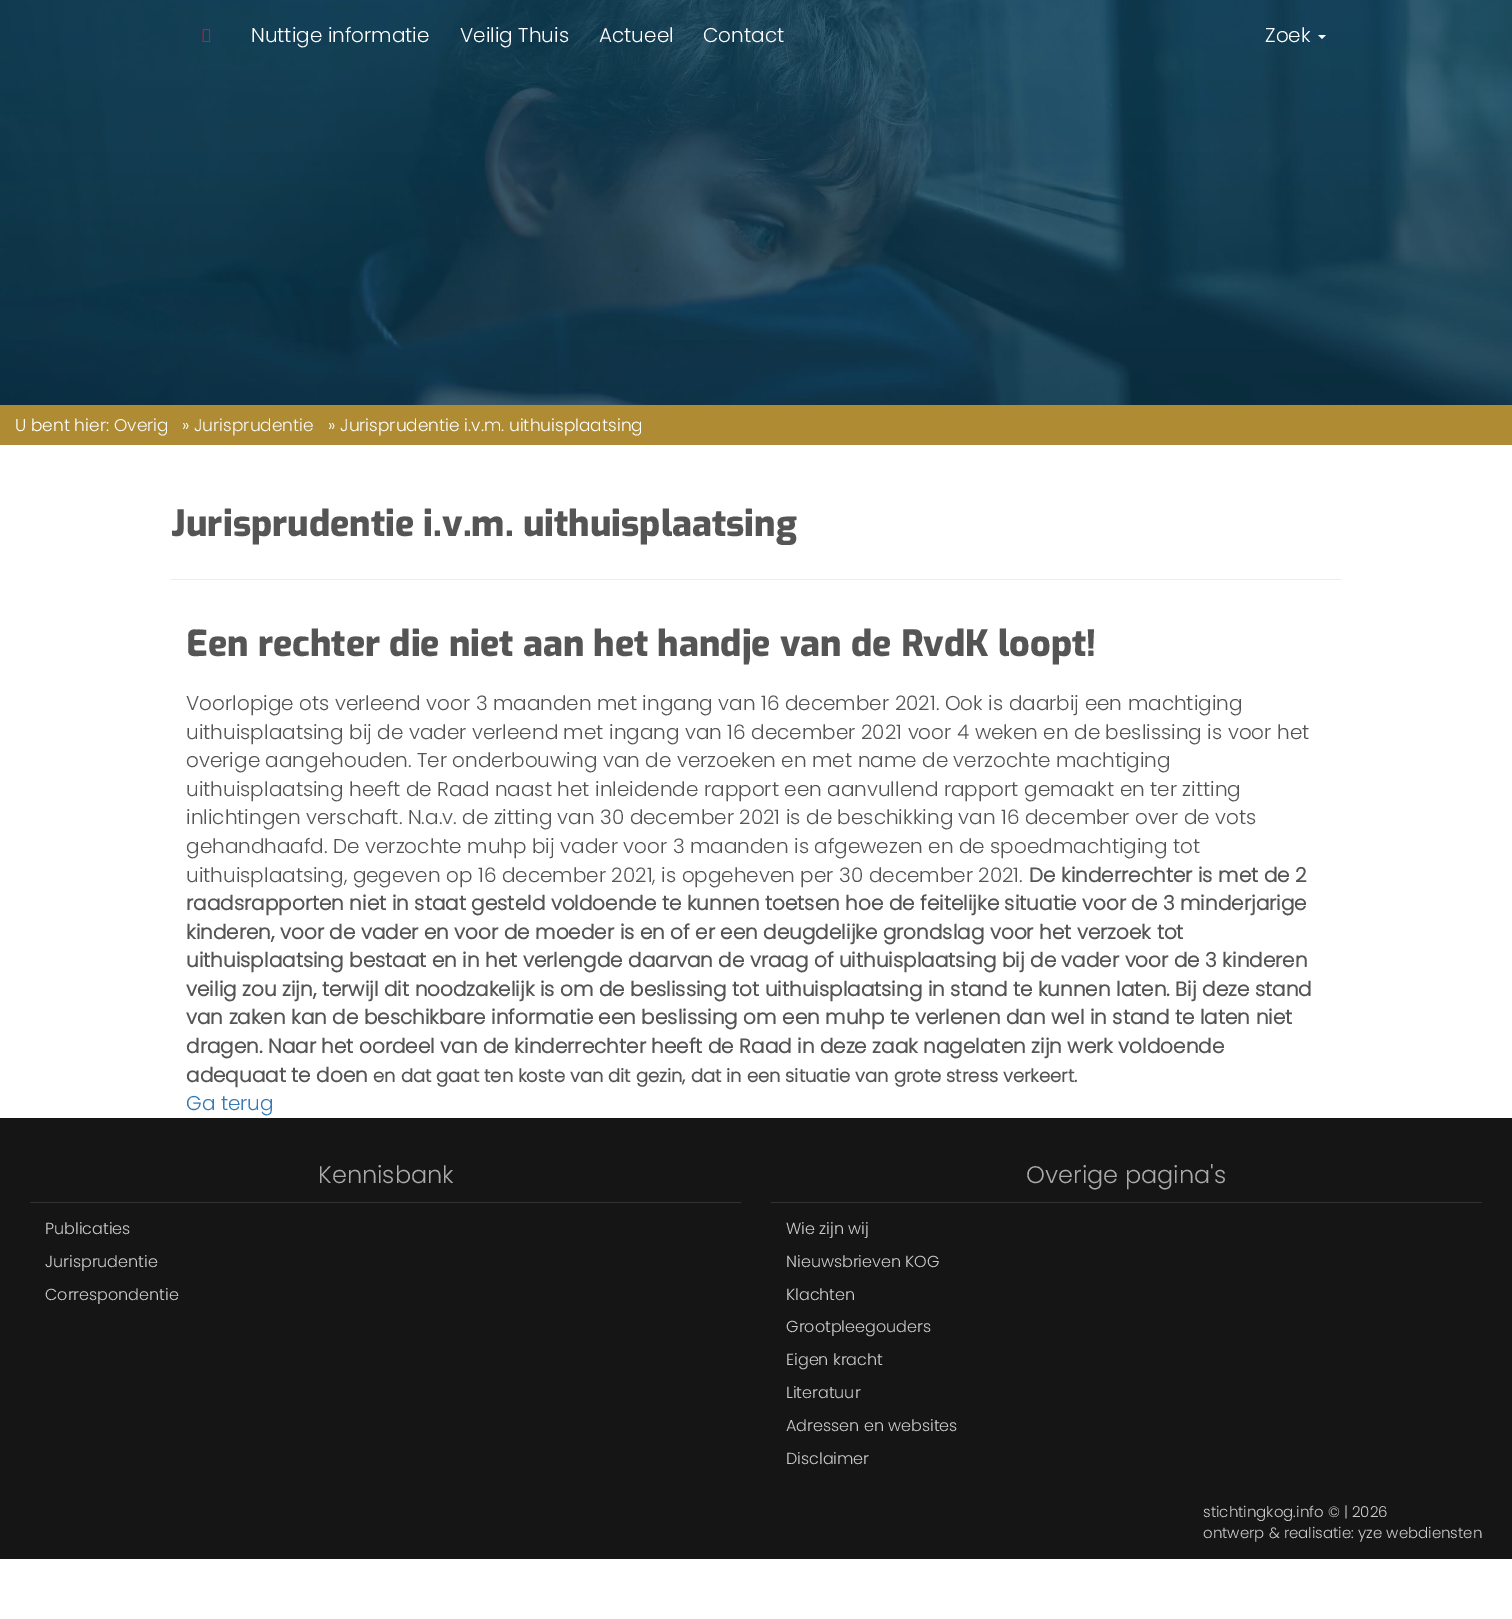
%!PS
<< /PageSize [1512 1619] >> setpagedevice
/mt/moveto load def
/li/lineto load def
/cp/closepath load def
/fl/fill load def
/co { dup -16 bitshift 255 div exch dup -8 bitshift 255 and 255 div exch 255 and 255 div setrgbcolor } def
/fn { [ exch dup neg 0 0 3 -1 roll 0 0 ] selectfont } def
/tx { co fn moveto show } def
/bx { co rectfill } def
/im { 5 dict begin { /h /w /y /x /name } { exch def } forall
  gsave x y translate w h scale
  w h 8 [w 0 0 h 0 0] name (r) file false 3 colorimage grestore end } def
0 1619 translate 1 -1 scale
4 setmiterlimit
0 0 1512 1619 16#FFFFFF bx
(media/1.raw) 0 0 1512 405 im
(media/2.raw) 202 29 9 13 im
1318 35 mt 1326 35 li 1322 39 li cp fl
0 405 1512 40 16#AF8C33 bx
171 579 1170 1 16#EEEEEE bx
0 1118 1512 441 16#151515 bx
30 1202 711 1 16#333333 bx
771 1202 711 1 16#333333 bx
(Nuttige informatie) 251 42 /Poppins-Light 20 16#FFFFFF tx
(Veilig Thuis) 460 42 /Poppins-Light 20 16#FFFFFF tx
(Actueel) 599 42 /Poppins-Light 20 16#FFFFFF tx
(Contact) 703 42 /Poppins-Light 20 16#FFFFFF tx
(Zoek) 1265 42 /Poppins-Light 20 16#FFFFFF tx
(U bent hier:) 15 431 /Poppins-Light 17 16#FFFFFF tx
(Overig) 114 431 /Poppins-Light 17 16#F9F9F9 tx
(») 182 431 /Poppins-Light 17 16#FFFFFF tx
(Jurisprudentie) 194 431 /Poppins-Light 17 16#F9F9F9 tx
(» Jurisprudentie i.v.m. uithuisplaatsing) 328 431 /Poppins-Light 17 16#FFFFFF tx
(Jurisprudentie i.v.m. uithuisplaatsing) 171 536 /Exo-ExtraBold 36 16#555555 tx
(Een rechter die niet aan het handje van de RvdK loopt!) 186 656 /Exo-ExtraBold 36 16#555555 tx
(Voorlopige ots verleend voor 3 maanden met ingang van 16 december 2021. Ook is daarbij een machtiging) 186 710 /Poppins-Light 20 16#555555 tx
(uithuisplaatsing bij de vader verleend met ingang van 16 december 2021 voor 4 weken en de beslissing is voor het) 186 739 /Poppins-Light 20 16#555555 tx
(overige aangehouden. Ter onderbouwing van de verzoeken en met name de verzochte machtiging) 186 767 /Poppins-Light 20 16#555555 tx
(uithuisplaatsing heeft de Raad naast het inleidende rapport een aanvullend rapport gemaakt en ter zitting) 186 796 /Poppins-Light 20 16#555555 tx
(inlichtingen verschaft. N.a.v. de zitting van 30 december 2021 is de beschikking van 16 december over de vots) 186 824 /Poppins-Light 20 16#555555 tx
(gehandhaafd. De verzochte muhp bij vader voor 3 maanden is afgewezen en de spoedmachtiging tot) 186 853 /Poppins-Light 20 16#555555 tx
(uithuisplaatsing, gegeven op 16 december 2021, is opgeheven per 30 december 2021.) 186 882 /Poppins-Light 20 16#555555 tx
(De kinderrechter is met de 2) 1029 882 /Poppins-Bold 20 16#555555 tx
(raadsrapporten niet in staat gesteld voldoende te kunnen toetsen hoe de feitelijke situatie voor de 3 minderjarige) 186 910 /Poppins-Bold 20 16#555555 tx
(kinderen, voor de vader en voor de moeder is en of er een deugdelijke grondslag voor het verzoek tot) 186 939 /Poppins-Bold 20 16#555555 tx
(uithuisplaatsing bestaat en in het verlengde daarvan de vraag of uithuisplaatsing bij de vader voor de 3 kinderen) 186 967 /Poppins-Bold 20 16#555555 tx
(veilig zou zijn, terwijl dit noodzakelijk is om de beslissing tot uithuisplaatsing in stand te kunnen laten. Bij deze stand) 186 996 /Poppins-Bold 20 16#555555 tx
(van zaken kan de beschikbare informatie een beslissing om een muhp te verlenen dan wel in stand te laten niet) 186 1024 /Poppins-Bold 20 16#555555 tx
(dragen. Naar het oordeel van de kinderrechter heeft de Raad in deze zaak nagelaten zijn werk voldoende) 186 1053 /Poppins-Bold 20 16#555555 tx
(adequaat te doen) 186 1082 /Poppins-Bold 20 16#555555 tx
(en dat gaat ten koste van dit gezin, dat in een situatie van grote stress verkeert.) 373 1082 /Poppins-Bold 18 16#555555 tx
(Ga terug) 186 1110 /Poppins-Light 20 16#337AB7 tx
(Kennisbank) 318 1183 /Poppins-Light 24 16#AAAAAA tx
(Publicaties) 45 1234 /Poppins-Light 16 16#CCCCCC tx
(Jurisprudentie) 45 1267 /Poppins-Light 16 16#CCCCCC tx
(Correspondentie) 45 1300 /Poppins-Light 16 16#CCCCCC tx
(Overige pagina's) 1026 1183 /Poppins-Light 24 16#AAAAAA tx
(Wie zijn wij) 786 1234 /Poppins-Light 16 16#CCCCCC tx
(Nieuwsbrieven KOG) 786 1267 /Poppins-Light 16 16#CCCCCC tx
(Klachten) 786 1300 /Poppins-Light 16 16#CCCCCC tx
(Grootpleegouders) 786 1332 /Poppins-Light 16 16#CCCCCC tx
(Eigen kracht) 786 1365 /Poppins-Light 16 16#CCCCCC tx
(Literatuur) 786 1398 /Poppins-Light 16 16#CCCCCC tx
(Adressen en websites) 786 1431 /Poppins-Light 16 16#CCCCCC tx
(Disclaimer) 786 1464 /Poppins-Light 16 16#CCCCCC tx
(stichtingkog.info © | 2026) 1203 1517 /Poppins-Light 15 16#CCCCCC tx
(ontwerp & realisatie: yze webdiensten) 1203 1538 /Poppins-Light 15 16#CCCCCC tx
showpage
